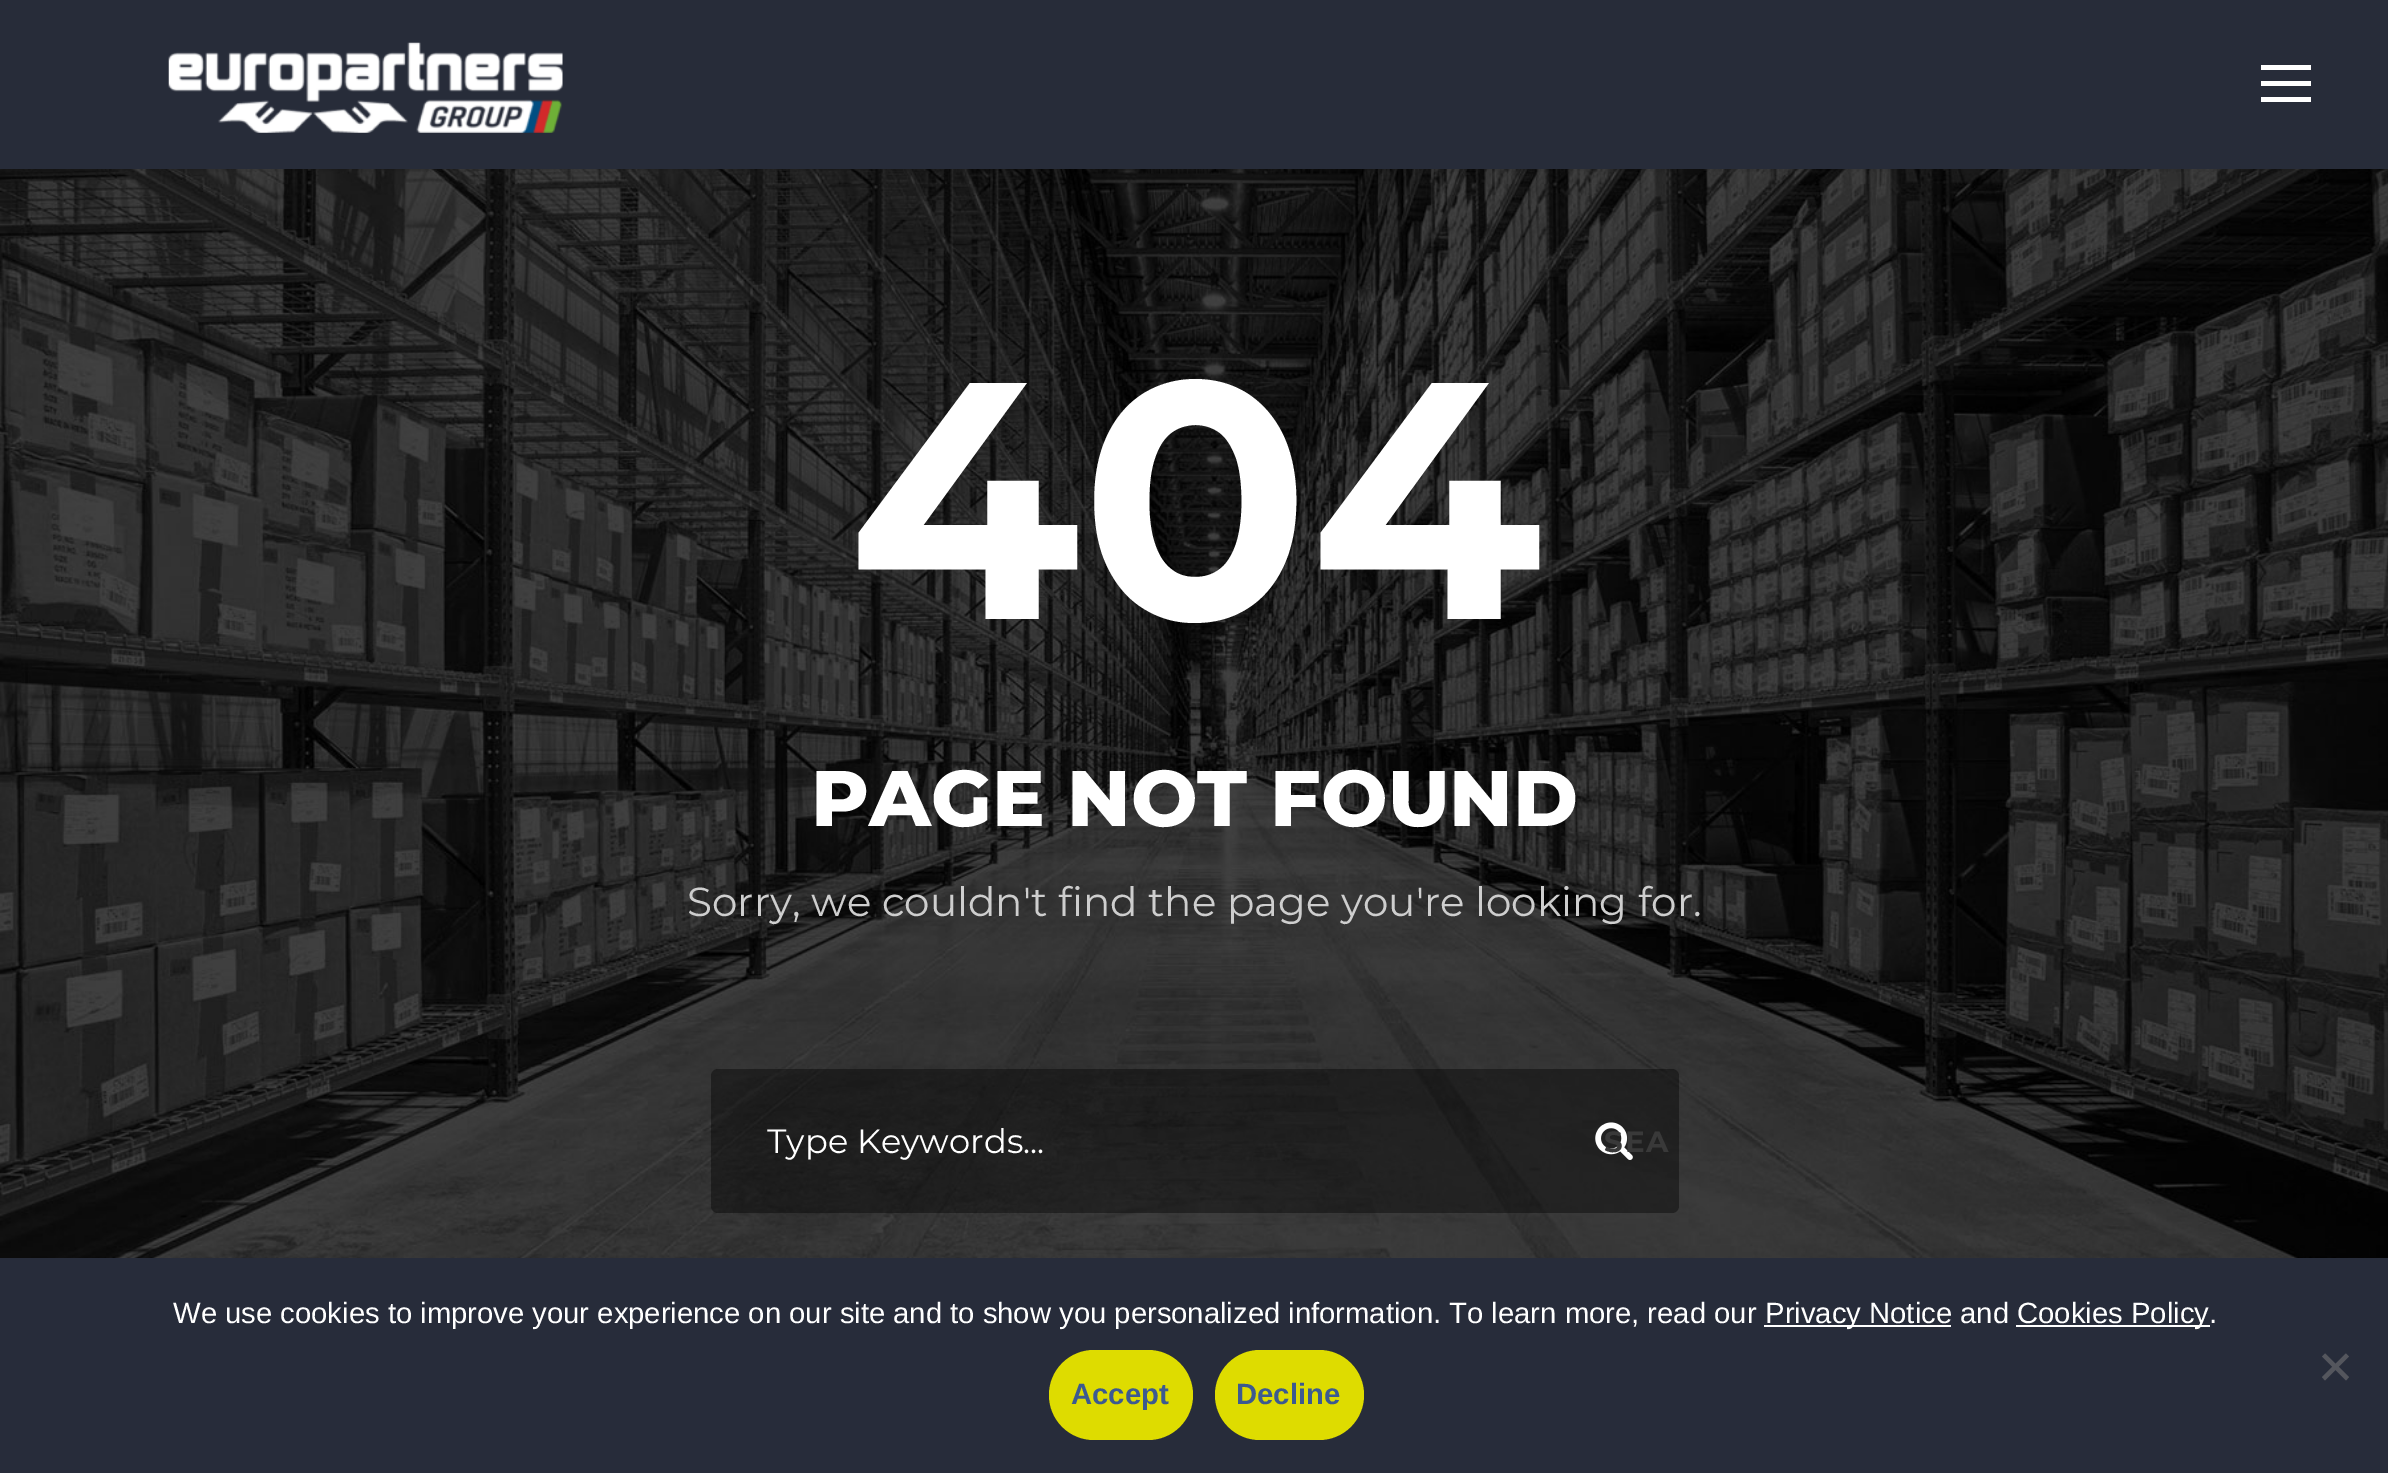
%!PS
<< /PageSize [2388 1473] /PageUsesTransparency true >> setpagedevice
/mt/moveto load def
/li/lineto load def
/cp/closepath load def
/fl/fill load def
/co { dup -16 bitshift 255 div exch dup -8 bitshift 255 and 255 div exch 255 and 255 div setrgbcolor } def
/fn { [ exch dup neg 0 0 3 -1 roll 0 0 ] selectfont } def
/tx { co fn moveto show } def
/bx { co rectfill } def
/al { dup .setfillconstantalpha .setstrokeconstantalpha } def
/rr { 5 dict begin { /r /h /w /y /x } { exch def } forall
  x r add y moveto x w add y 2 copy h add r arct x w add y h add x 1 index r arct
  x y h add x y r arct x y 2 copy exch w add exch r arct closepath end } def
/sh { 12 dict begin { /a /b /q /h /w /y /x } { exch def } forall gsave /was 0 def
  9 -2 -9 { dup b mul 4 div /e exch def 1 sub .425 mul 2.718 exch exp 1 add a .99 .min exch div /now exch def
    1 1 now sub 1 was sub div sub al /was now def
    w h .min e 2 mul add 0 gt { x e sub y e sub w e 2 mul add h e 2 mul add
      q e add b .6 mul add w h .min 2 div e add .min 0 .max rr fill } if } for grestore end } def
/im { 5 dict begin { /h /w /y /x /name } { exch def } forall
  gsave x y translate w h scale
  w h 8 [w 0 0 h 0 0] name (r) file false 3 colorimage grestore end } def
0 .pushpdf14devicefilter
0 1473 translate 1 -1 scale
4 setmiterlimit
0 0 2388 1473 16#FFFFFF bx
(media/2.raw) 0 169 2388 1089 im
16#000000 co
0 2 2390 169 0 2 .1 sh
0 0 2388 169 16#272C39 bx
(media/1.raw) 168 42 395 91 im
2261 65 50 5 16#FFFFFF bx
2261 81 50 5 16#FFFFFF bx
2261 97 50 5 16#FFFFFF bx
0.4 al
16#000000 co
711 1069 968 144 7 rr fl
1 al
(media/3.raw) 1595 1122 38 38 im
0 1258 2388 215 16#272C3A bx
1764 1325 187 2 16#FFFFFF bx
2016 1325 194 2 16#FFFFFF bx
16#54565D co
2346 1353.5 mt 2349 1356.5 li 2325 1380.5 li 2322 1377 li cp fl
2322 1356.5 mt 2325 1353.5 li 2349 1377 li 2346 1380.5 li cp fl
16#DEDC00 co
1049 1350 144 90 45 rr fl
1215 1350 149 90 45 rr fl
(404) 848 619 /Montserrat-Bold 337.5 16#FFFFFF tx
(PAGE NOT FOUND) 811 826 /Montserrat-ExtraBold 78.75 16#FFFFFF tx
(Sorry, we couldn't find the page you're looking for.) 687 916 /Montserrat-Regular 40.5 16#CECECE tx
(Type Keywords...) 767 1153 /Montserrat-Regular 33.75 16#FFFFFF tx
/Montserrat-Bold 29.25 fn
16#393939 co
1604 1152 mt 2 0 (SEA) ashow
(We use cookies to improve your experience on our site and to show you personalized information. To learn more, read our) 173 1323 /LiberationSans-Regular 29.25 16#FFFFFF tx
(Privacy Notice and) 1765 1323 /LiberationSans-Regular 29.25 16#FFFFFF tx
(Cookies Policy.) 2017 1323 /LiberationSans-Regular 29.25 16#FFFFFF tx
(Accept) 1071 1404 /LiberationSans-Bold 29.25 16#3C5A90 tx
(Decline) 1236 1404 /LiberationSans-Bold 29.25 16#3C5A90 tx
.poppdf14devicefilter showpage
